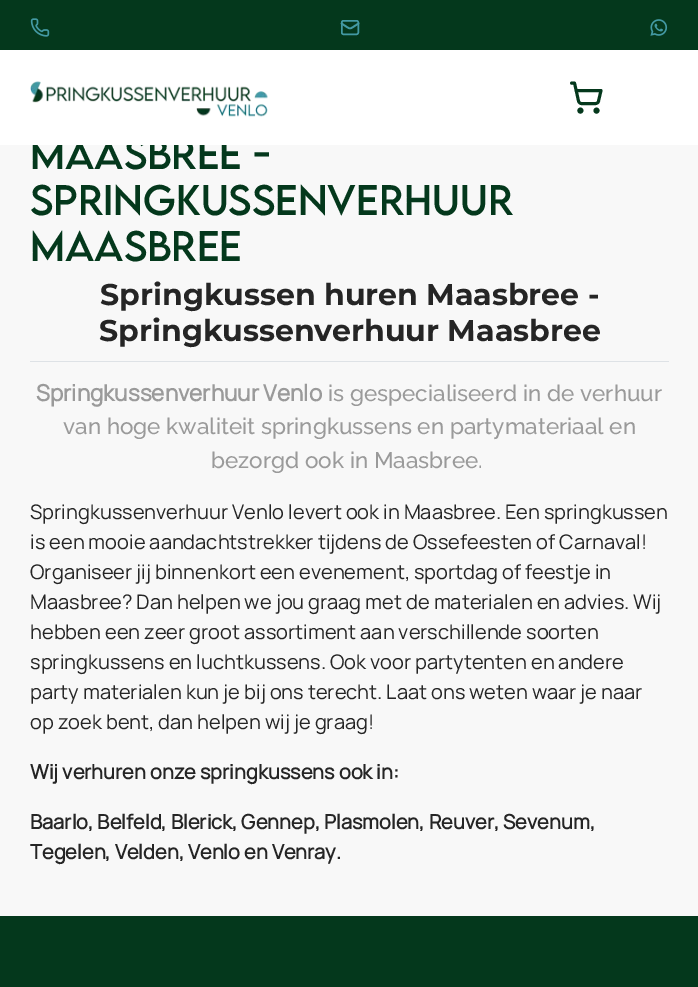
%!PS
<< /PageSize [698 987] >> setpagedevice
/mt/moveto load def
/li/lineto load def
/ct/curveto load def
/st/stroke load def
/lw/setlinewidth load def
/co { dup -16 bitshift 255 div exch dup -8 bitshift 255 and 255 div exch 255 and 255 div setrgbcolor } def
/fn { [ exch dup neg 0 0 3 -1 roll 0 0 ] selectfont } def
/tx { co fn moveto show } def
/bx { co rectfill } def
/ci { newpath 0 360 arc closepath } def
/rr { 5 dict begin { /r /h /w /y /x } { exch def } forall
  x r add y moveto x w add y 2 copy h add r arct x w add y h add x 1 index r arct
  x y h add x y r arct x y 2 copy exch w add exch r arct closepath end } def
/im { 5 dict begin { /h /w /y /x /name } { exch def } forall
  gsave x y translate w h scale
  w h 8 [w 0 0 h 0 0] name (r) file false 3 colorimage grestore end } def
0 987 translate 1 -1 scale
4 setmiterlimit
0 0 698 987 16#F8F8F8 bx
0 0 698 50 16#04381C bx
(media/1.raw) 30 18 20 19 im
16#4399A3 co
1.7 lw
1 setlinecap
1 setlinejoin
358.5 23.5 mt 348 30 352 30 341.5 23.5 ct st
1.5 lw
0 setlinecap
0 setlinejoin
341.75 20.75 16.5 13.5 1.75 rr st
(media/2.raw) 650 19 18 17 im
30 361 639 1 16#DEE2E6 bx
0 916 698 71 16#04381C bx
(Maasbree -) 30 169 /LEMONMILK-Regular 38 16#04381C tx
0 50 698 95 16#FFFFFF bx
16#04381C co
2.9 lw
1 setlinecap
1 setlinejoin
571.5 83 mt 574.5 83 li 578.5 101 li 579 102.5 580 103.5 581.5 103.5 ct 595.5 103.5 li 597 103.5 598.5 102.5 598.5 101 ct 601 90.5 li 576 90.5 li st
0 setlinecap
0 setlinejoin
596.5 110.6 1.5 ci st
580.4 110.6 1.5 ci st
(media/3.raw) 30 81 238 36 im
(Springkussenverhuur) 30 215 /LEMONMILK-Regular 38 16#04381C tx
(Maasbree) 30 261 /LEMONMILK-Regular 38 16#04381C tx
(Springkussen huren Maasbree -) 100 305 /Montserrat-Bold 30 16#252525 tx
(Springkussenverhuur Maasbree) 99 341 /Montserrat-Bold 30 16#252525 tx
(Springkussenverhuur Venlo) 36 401 /Manrope-Bold 22.5 16#9A9A9A tx
(is gespecialiseerd in de verhuur) 328 401 /Raleway-Medium 22.5 16#9A9A9A tx
(van hoge kwaliteit springkussens en partymateriaal en) 63 434 /Raleway-Medium 22.5 16#9A9A9A tx
(bezorgd ook in Maasbree.) 211 468 /Raleway-Medium 22.5 16#9A9A9A tx
(Springkussenverhuur Venlo levert ook in Maasbree. Een springkussen) 30 519 /Manrope-Regular 20 16#252525 tx
(is een mooie aandachtstrekker tijdens de Ossefeesten of Carnaval!) 30 549 /Manrope-Regular 20 16#252525 tx
(Organiseer jij binnenkort een evenement, sportdag of feestje in) 30 579 /Manrope-Regular 20 16#252525 tx
(Maasbree? Dan helpen we jou graag met de materialen en advies. Wij) 30 609 /Manrope-Regular 20 16#252525 tx
(hebben een zeer groot assortiment aan verschillende soorten) 30 639 /Manrope-Regular 20 16#252525 tx
(springkussens en luchtkussens. Ook voor partytenten en andere) 30 669 /Manrope-Regular 20 16#252525 tx
(party materialen kun je bij ons terecht. Laat ons weten waar je naar) 30 699 /Manrope-Regular 20 16#252525 tx
(op zoek bent, dan helpen wij je graag!) 30 729 /Manrope-Regular 20 16#252525 tx
(Wij verhuren onze springkussens ook in:) 30 779 /Manrope-Bold 20 16#252525 tx
(Baarlo, Belfeld, Blerick, Gennep, Plasmolen, Reuver, Sevenum,) 30 829 /Manrope-Bold 20 16#252525 tx
(Tegelen, Velden, Venlo en Venray.) 30 859 /Manrope-Bold 20 16#252525 tx
showpage
